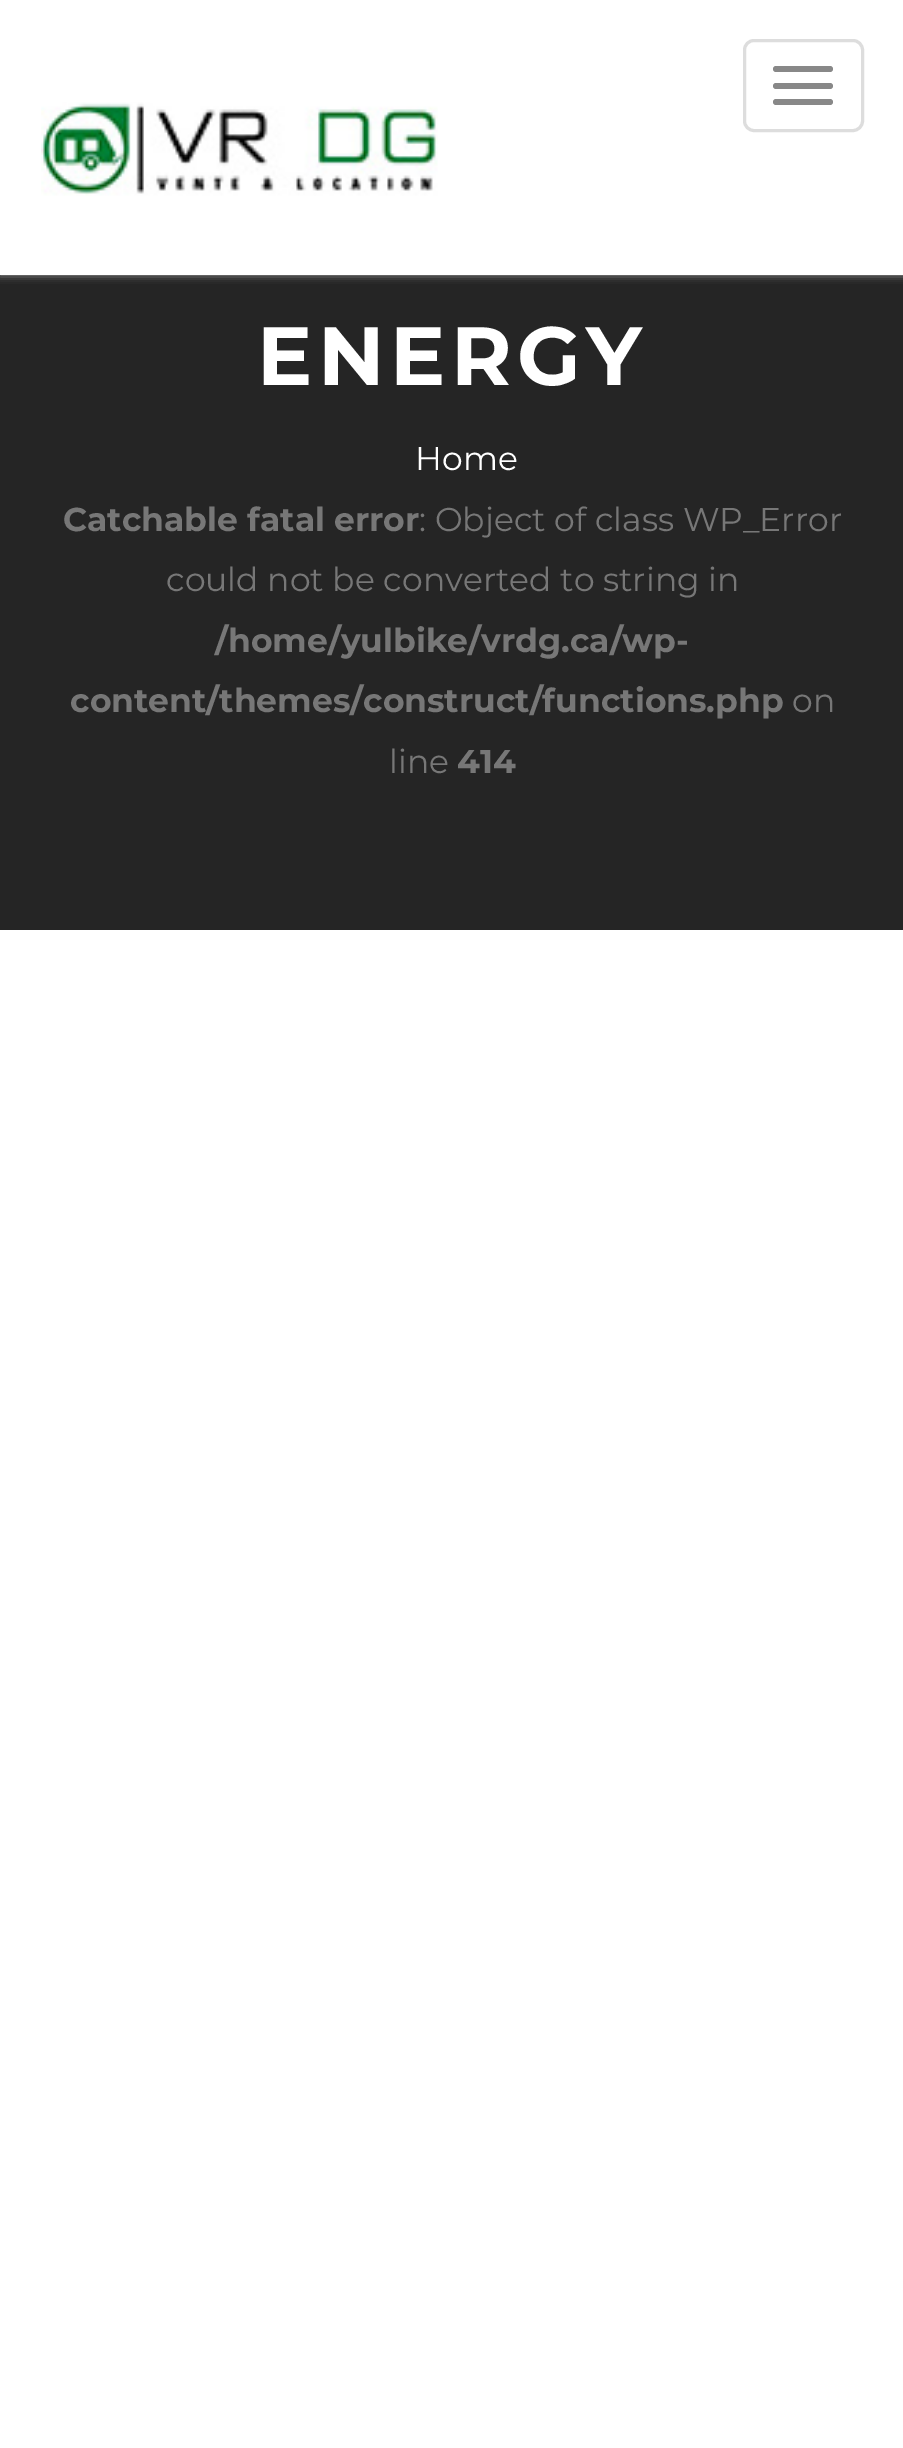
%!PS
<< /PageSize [903 2448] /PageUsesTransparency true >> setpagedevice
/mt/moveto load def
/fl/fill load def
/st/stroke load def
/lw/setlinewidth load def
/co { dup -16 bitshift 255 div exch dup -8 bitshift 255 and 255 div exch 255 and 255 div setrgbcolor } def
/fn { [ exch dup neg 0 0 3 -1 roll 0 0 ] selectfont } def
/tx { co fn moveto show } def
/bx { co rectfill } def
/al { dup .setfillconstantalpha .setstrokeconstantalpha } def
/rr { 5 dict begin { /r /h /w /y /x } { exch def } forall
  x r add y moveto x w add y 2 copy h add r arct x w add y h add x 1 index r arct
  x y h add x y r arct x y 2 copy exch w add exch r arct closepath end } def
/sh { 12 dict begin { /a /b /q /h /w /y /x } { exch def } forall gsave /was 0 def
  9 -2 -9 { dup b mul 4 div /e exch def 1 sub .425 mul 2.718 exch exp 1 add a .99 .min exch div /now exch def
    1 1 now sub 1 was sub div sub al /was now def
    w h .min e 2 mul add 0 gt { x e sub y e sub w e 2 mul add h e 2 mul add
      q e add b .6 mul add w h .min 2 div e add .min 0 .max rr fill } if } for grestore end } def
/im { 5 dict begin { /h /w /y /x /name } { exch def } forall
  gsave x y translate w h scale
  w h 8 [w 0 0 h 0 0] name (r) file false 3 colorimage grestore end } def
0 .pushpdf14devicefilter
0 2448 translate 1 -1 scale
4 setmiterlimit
0 0 903 2448 16#FFFFFF bx
0 275 903 655 16#252525 bx
16#A1A1A1 co
0 0 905 275 0 4 1 sh
0 0 903 275 16#FFFFFF bx
16#DDDDDD co
3 lw
744.5 40.5 118 90 9.5 rr st
16#888888 co
773 66 60 6 3 rr fl
773 83 60 6 3 rr fl
773 99 60 6 3 rr fl
(media/1.raw) 41 102 397 94 im
/Montserrat-Bold 82.5 fn
16#FFFFFF co
257 385 mt 5.5 0 (ENERGY) ashow
(Home) 415 470 /Montserrat-Thin 33 16#FFFFFF tx
(Catchable fatal error) 63 531 /Montserrat-Bold 33 16#777777 tx
(: Object of class WP_Error) 419 531 /Montserrat-Thin 33 16#777777 tx
(could not be converted to string in) 166 591 /Montserrat-Thin 33 16#777777 tx
(/home/yulbike/vrdg.ca/wp-) 215 652 /Montserrat-Bold 33 16#777777 tx
(content/themes/construct/functions.php) 70 712 /Montserrat-Bold 33 16#777777 tx
(on) 792 712 /Montserrat-Thin 33 16#777777 tx
(line) 389 773 /Montserrat-Thin 33 16#777777 tx
(414) 457 773 /Montserrat-Bold 33 16#777777 tx
.poppdf14devicefilter showpage
